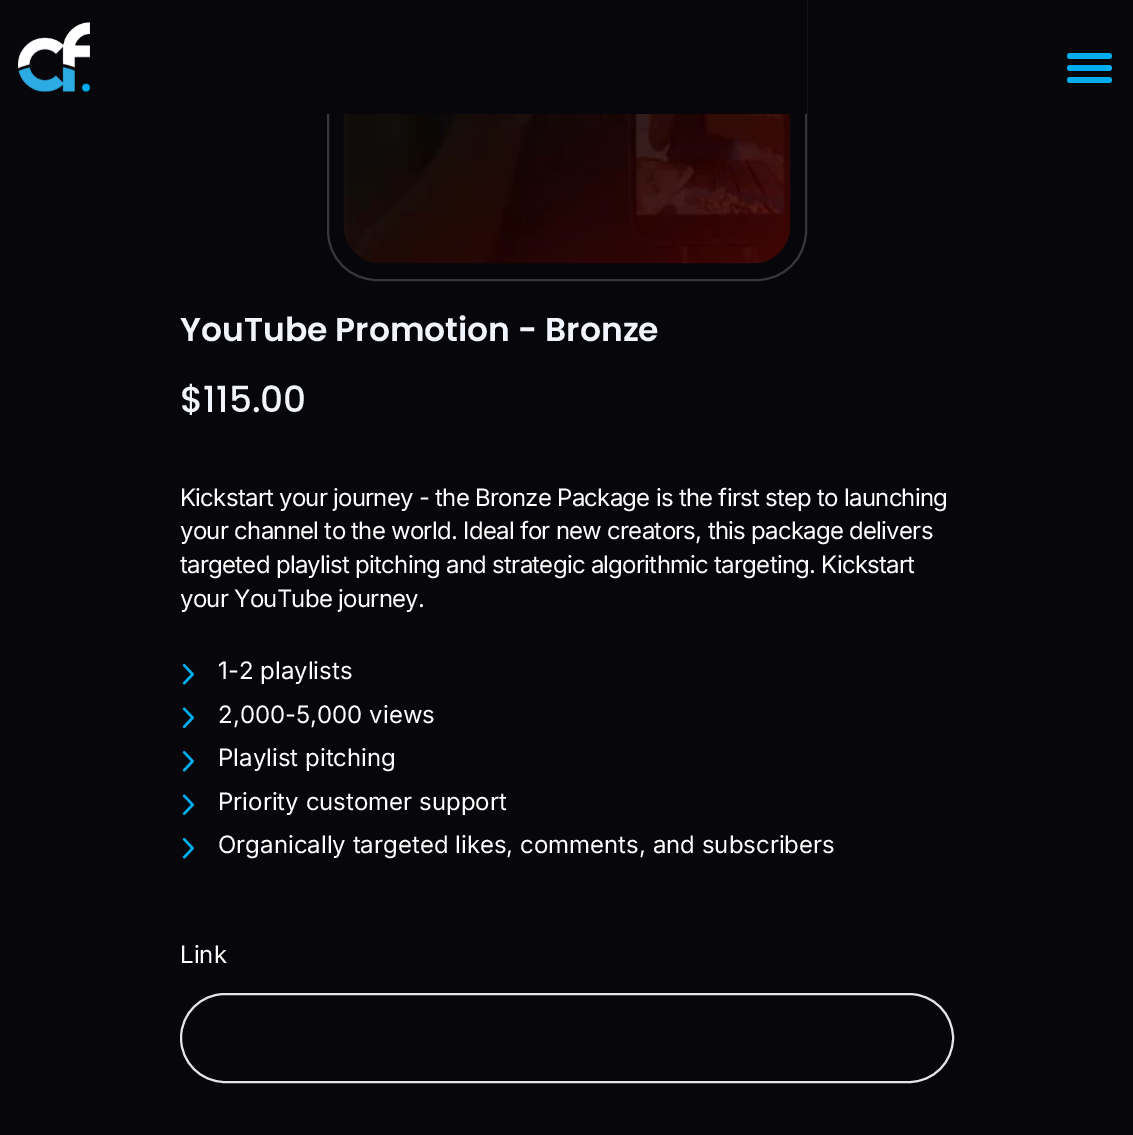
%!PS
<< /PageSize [1133 1135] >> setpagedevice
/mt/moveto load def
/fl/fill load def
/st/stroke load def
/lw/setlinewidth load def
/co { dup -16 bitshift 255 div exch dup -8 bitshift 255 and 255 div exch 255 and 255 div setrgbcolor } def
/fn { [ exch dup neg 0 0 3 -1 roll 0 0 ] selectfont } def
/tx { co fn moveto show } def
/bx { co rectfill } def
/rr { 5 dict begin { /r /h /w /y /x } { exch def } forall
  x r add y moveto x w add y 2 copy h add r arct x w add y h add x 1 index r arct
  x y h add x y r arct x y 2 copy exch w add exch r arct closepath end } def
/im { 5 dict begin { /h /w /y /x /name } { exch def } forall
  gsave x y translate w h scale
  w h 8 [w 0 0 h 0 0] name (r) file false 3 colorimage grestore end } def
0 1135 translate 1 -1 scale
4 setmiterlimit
0 0 1133 1135 16#07070B bx
16#36363B co
2 lw
328 -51 478 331 49 rr st
327 0 480 114 16#07070B bx
(media/1.raw) 18 22 72 70 im
16#00ADEF co
1067 53 45 6 3 rr fl
1067 65 45 6 3 rr fl
1067 77 45 6 3 rr fl
(media/2.raw) 343 114 448 150 im
(media/3.raw) 182 664 12 21 im
(media/4.raw) 182 707 12 21 im
(media/3.raw) 182 751 12 21 im
(media/4.raw) 182 794 12 21 im
(media/3.raw) 182 838 12 21 im
16#E5E5E5 co
181 994 772 88 44 rr st
(YouTube Promotion - Bronze) 180 341 /Poppins-SemiBold 33 16#F1F4FA tx
($115.00) 180 412 /Poppins-Medium 36 16#F1F4FA tx
/Inter-Regular 24 fn
16#FFFFFF co
180 506 mt -.75 0 (Kickstart your journey - the Bronze Package is the first step to launching) ashow
180 539 mt -.75 0 (your channel to the world. Ideal for new creators, this package delivers) ashow
180 573 mt -.75 0 (targeted playlist pitching and strategic algorithmic targeting. Kickstart) ashow
180 607 mt -.75 0 (your YouTube journey.) ashow
(1-2 playlists) 218 679 /Inter-Regular 24 16#FFFFFF tx
(2,000-5,000 views) 218 723 /Inter-Regular 24 16#FFFFFF tx
(Playlist pitching) 218 766 /Inter-Regular 24 16#FFFFFF tx
(Priority customer support) 218 810 /Inter-Regular 24 16#FFFFFF tx
(Organically targeted likes, comments, and subscribers) 218 853 /Inter-Regular 24 16#FFFFFF tx
(Link) 180 963 /Inter-Regular 24 16#FFFFFF tx
showpage
